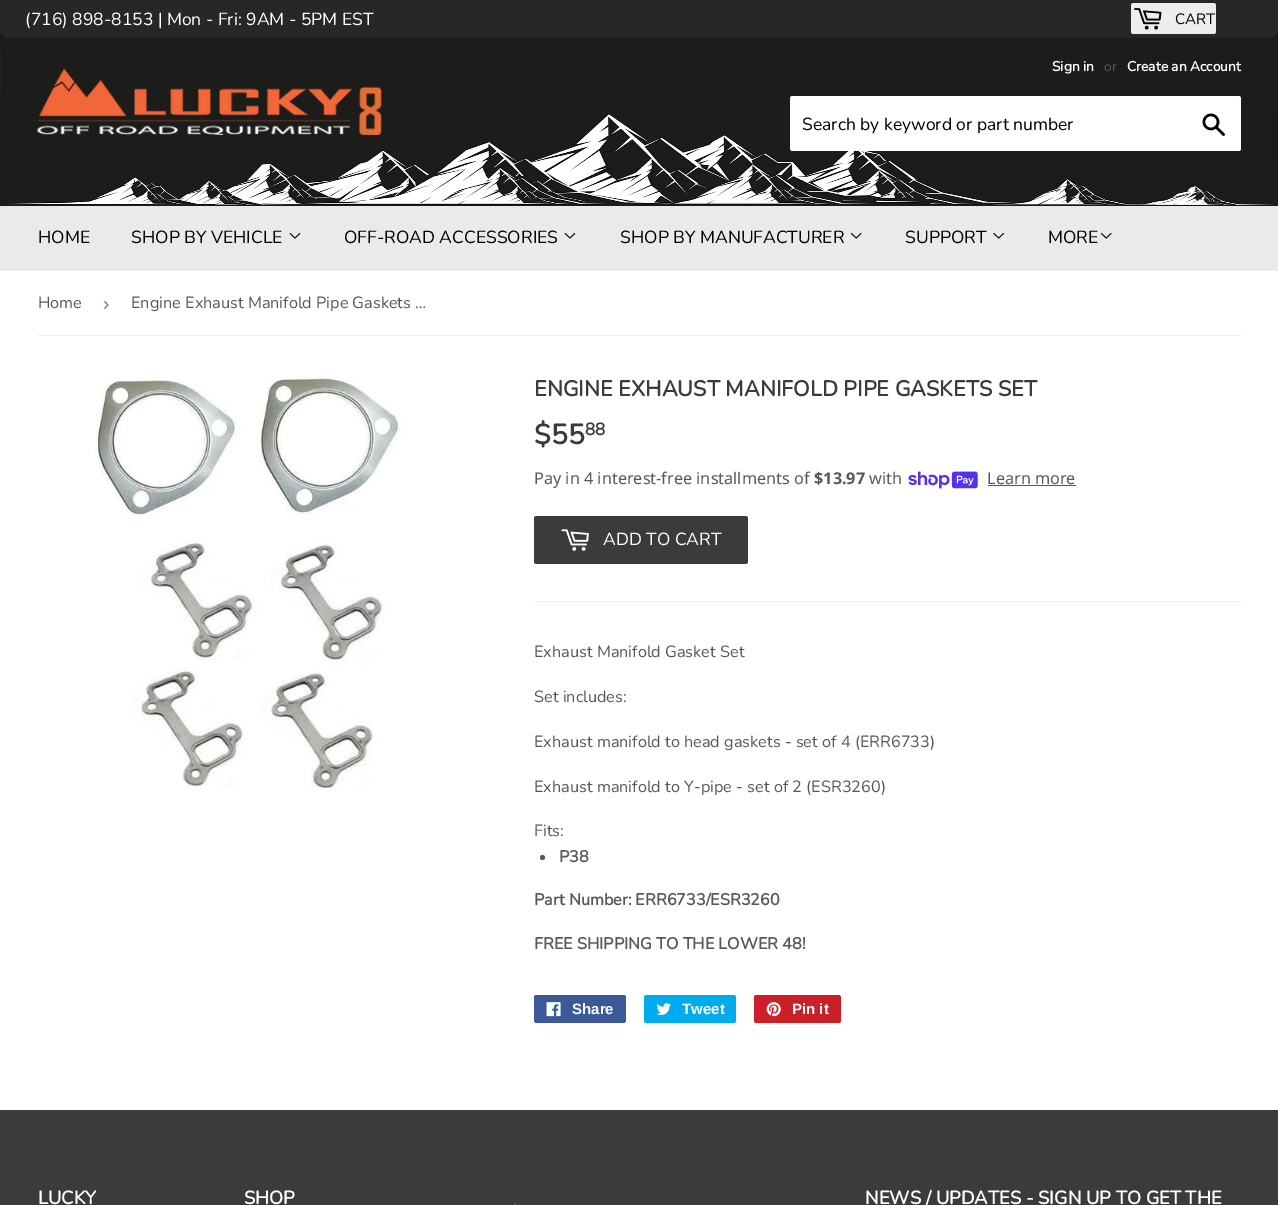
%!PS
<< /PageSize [1278 1205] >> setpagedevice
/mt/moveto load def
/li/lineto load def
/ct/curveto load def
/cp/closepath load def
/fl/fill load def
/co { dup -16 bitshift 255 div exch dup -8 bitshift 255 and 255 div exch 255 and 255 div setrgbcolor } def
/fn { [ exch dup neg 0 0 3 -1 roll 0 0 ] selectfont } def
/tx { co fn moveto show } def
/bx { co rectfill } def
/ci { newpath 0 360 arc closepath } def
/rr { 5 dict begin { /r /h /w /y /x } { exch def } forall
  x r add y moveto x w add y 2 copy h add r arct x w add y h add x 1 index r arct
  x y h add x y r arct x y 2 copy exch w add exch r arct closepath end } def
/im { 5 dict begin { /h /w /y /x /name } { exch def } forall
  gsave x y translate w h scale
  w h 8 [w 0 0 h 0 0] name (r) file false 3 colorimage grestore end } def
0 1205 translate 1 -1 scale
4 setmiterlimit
0 0 1278 1205 16#FFFFFF bx
(media/2.raw) 0 0 1278 206 im
16#272727 co
2.5 0 mt 1276.5 0 li 1278 0 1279 1 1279 2.5 ct 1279 28 li 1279 33.5 1274.5 38 1269 38 ct 10 38 li 4.5 38 0 33.5 0 28 ct 0 2.5 li 0 1 1 0 2.5 0 ct cp fl
16#EDEDED co
1131 3 85 31 2.5 rr fl
(media/1.raw) 1134 8 28 22 im
(media/3.raw) 37 68 345 67 im
16#FFFFFF co
790 96 451 55 2.5 rr fl
(media/4.raw) 1202 113 23 23 im
0 206 1278 65 16#EAEAEA bx
(media/5.raw) 289 232 12 7 im
(media/5.raw) 564 232 12 7 im
(media/6.raw) 850 232 12 7 im
(media/7.raw) 993 232 11 7 im
(media/6.raw) 1100 232 12 7 im
38 335 1203 1 16#ECECEC bx
(media/8.raw) 93 377 310 414 im
(media/9.raw) 908 471 70 18 im
988 485 88 1 16#585858 bx
16#3B3B39 co
534 516 214 48 2.5 rr fl
(media/10.raw) 561 529 28 22 im
534 601 707 1 16#ECECEC bx
16#585858 co
542.5 857.5 2.5 ci fl
16#3B5998 co
534 995 92 28 2.5 rr fl
(media/11.raw) 546 1002 15 15 im
16#00ACED co
644 995 92 28 2.5 rr fl
(media/12.raw) 656 1003 15 12 im
16#CB2027 co
754 995 87 28 2.5 rr fl
(media/13.raw) 766 1002 15 15 im
0 1110 1278 95 16#3B3B39 bx
(media/14.raw) 514 1203 3 2 im
(\(716\) 898-8153 | Mon - Fri: 9AM - 5PM EST) 25 25 /Nunito-ExtraLight 17.5 16#FFFFFF tx
(CART) 1175 24 /Nunito-ExtraLight 15 16#000000 tx
(Sign in) 1052 71 /Nunito-Bold 13.75 16#FFFFFF tx
(or) 1104 71 /Nunito-ExtraLight 13.75 16#585858 tx
(Create an Account) 1127 71 /Nunito-Bold 13.75 16#FFFFFF tx
(Search by keyword or part number) 802 130 /Nunito-ExtraLight 17.5 16#000000 tx
(HOME) 38 243 /Nunito-ExtraLight 17.5 16#000000 tx
(SHOP BY VEHICLE) 131 243 /Nunito-ExtraLight 17.5 16#000000 tx
(OFF-ROAD ACCESSORIES) 344 243 /Nunito-ExtraLight 17.5 16#000000 tx
(SHOP BY MANUFACTURER) 620 243 /Nunito-ExtraLight 17.5 16#000000 tx
(SUPPORT) 905 243 /Nunito-ExtraLight 17.5 16#000000 tx
(MORE) 1048 243 /Nunito-ExtraLight 17.5 16#000000 tx
(Home) 38 308 /Nunito-ExtraLight 16.25 16#585858 tx
(›) 103 310 /LiberationSans-Regular 19 16#767676 tx
(Engine Exhaust Manifold Pipe Gaskets …) 131 308 /Nunito-ExtraLight 16.25 16#585858 tx
(ENGINE EXHAUST MANIFOLD PIPE GASKETS SET) 534 396 /Nunito-Bold 21.7 16#3B3B3B tx
($55) 534 444 /Nunito-Bold 28 16#3B3B3B tx
(88) 585 435 /Nunito-Bold 17 16#3B3B3B tx
(Pay in 4 interest-free installments of) 534 484 /NotoSans-Regular 16.25 16#585858 tx
($13.97) 814 484 /NotoSans-Bold 16.25 16#585858 tx
(with) 869 484 /NotoSans-Regular 16.25 16#585858 tx
(Learn more) 987 484 /NotoSans-Regular 16.25 16#585858 tx
(ADD TO CART) 603 545 /Nunito-ExtraLight 17.5 16#FFFFFF tx
(Exhaust Manifold Gasket Set) 534 657 /Nunito-ExtraLight 16.25 16#585858 tx
(Set includes:) 534 702 /Nunito-ExtraLight 16.25 16#585858 tx
(Exhaust manifold to head gaskets - set of 4 \(ERR6733\)) 534 747 /Nunito-ExtraLight 16.25 16#585858 tx
(Exhaust manifold to Y-pipe - set of 2 \(ESR3260\)) 534 792 /Nunito-ExtraLight 16.25 16#585858 tx
(Fits:) 534 836 /Nunito-ExtraLight 16.25 16#585858 tx
(P38) 559 862 /Nunito-Bold 16.25 16#585858 tx
(Part Number: ERR6733/ESR3260) 534 905 /Nunito-Bold 16.25 16#585858 tx
(FREE SHIPPING TO THE LOWER 48!) 534 949 /Nunito-Bold 16.25 16#585858 tx
(Share) 572 1014 /LiberationSans-Bold 15 16#FFFFFF tx
(Tweet) 682 1014 /LiberationSans-Bold 15 16#FFFFFF tx
(Pin it) 792 1014 /LiberationSans-Bold 15 16#FFFFFF tx
(LUCKY) 38 1204 /Nunito-Bold 18.4 16#FFFFFF tx
(SHOP) 244 1204 /Nunito-Bold 18.4 16#FFFFFF tx
(NEWS / UPDATES - SIGN UP TO GET THE) 865 1204 /Nunito-Bold 18.4 16#FFFFFF tx
showpage
